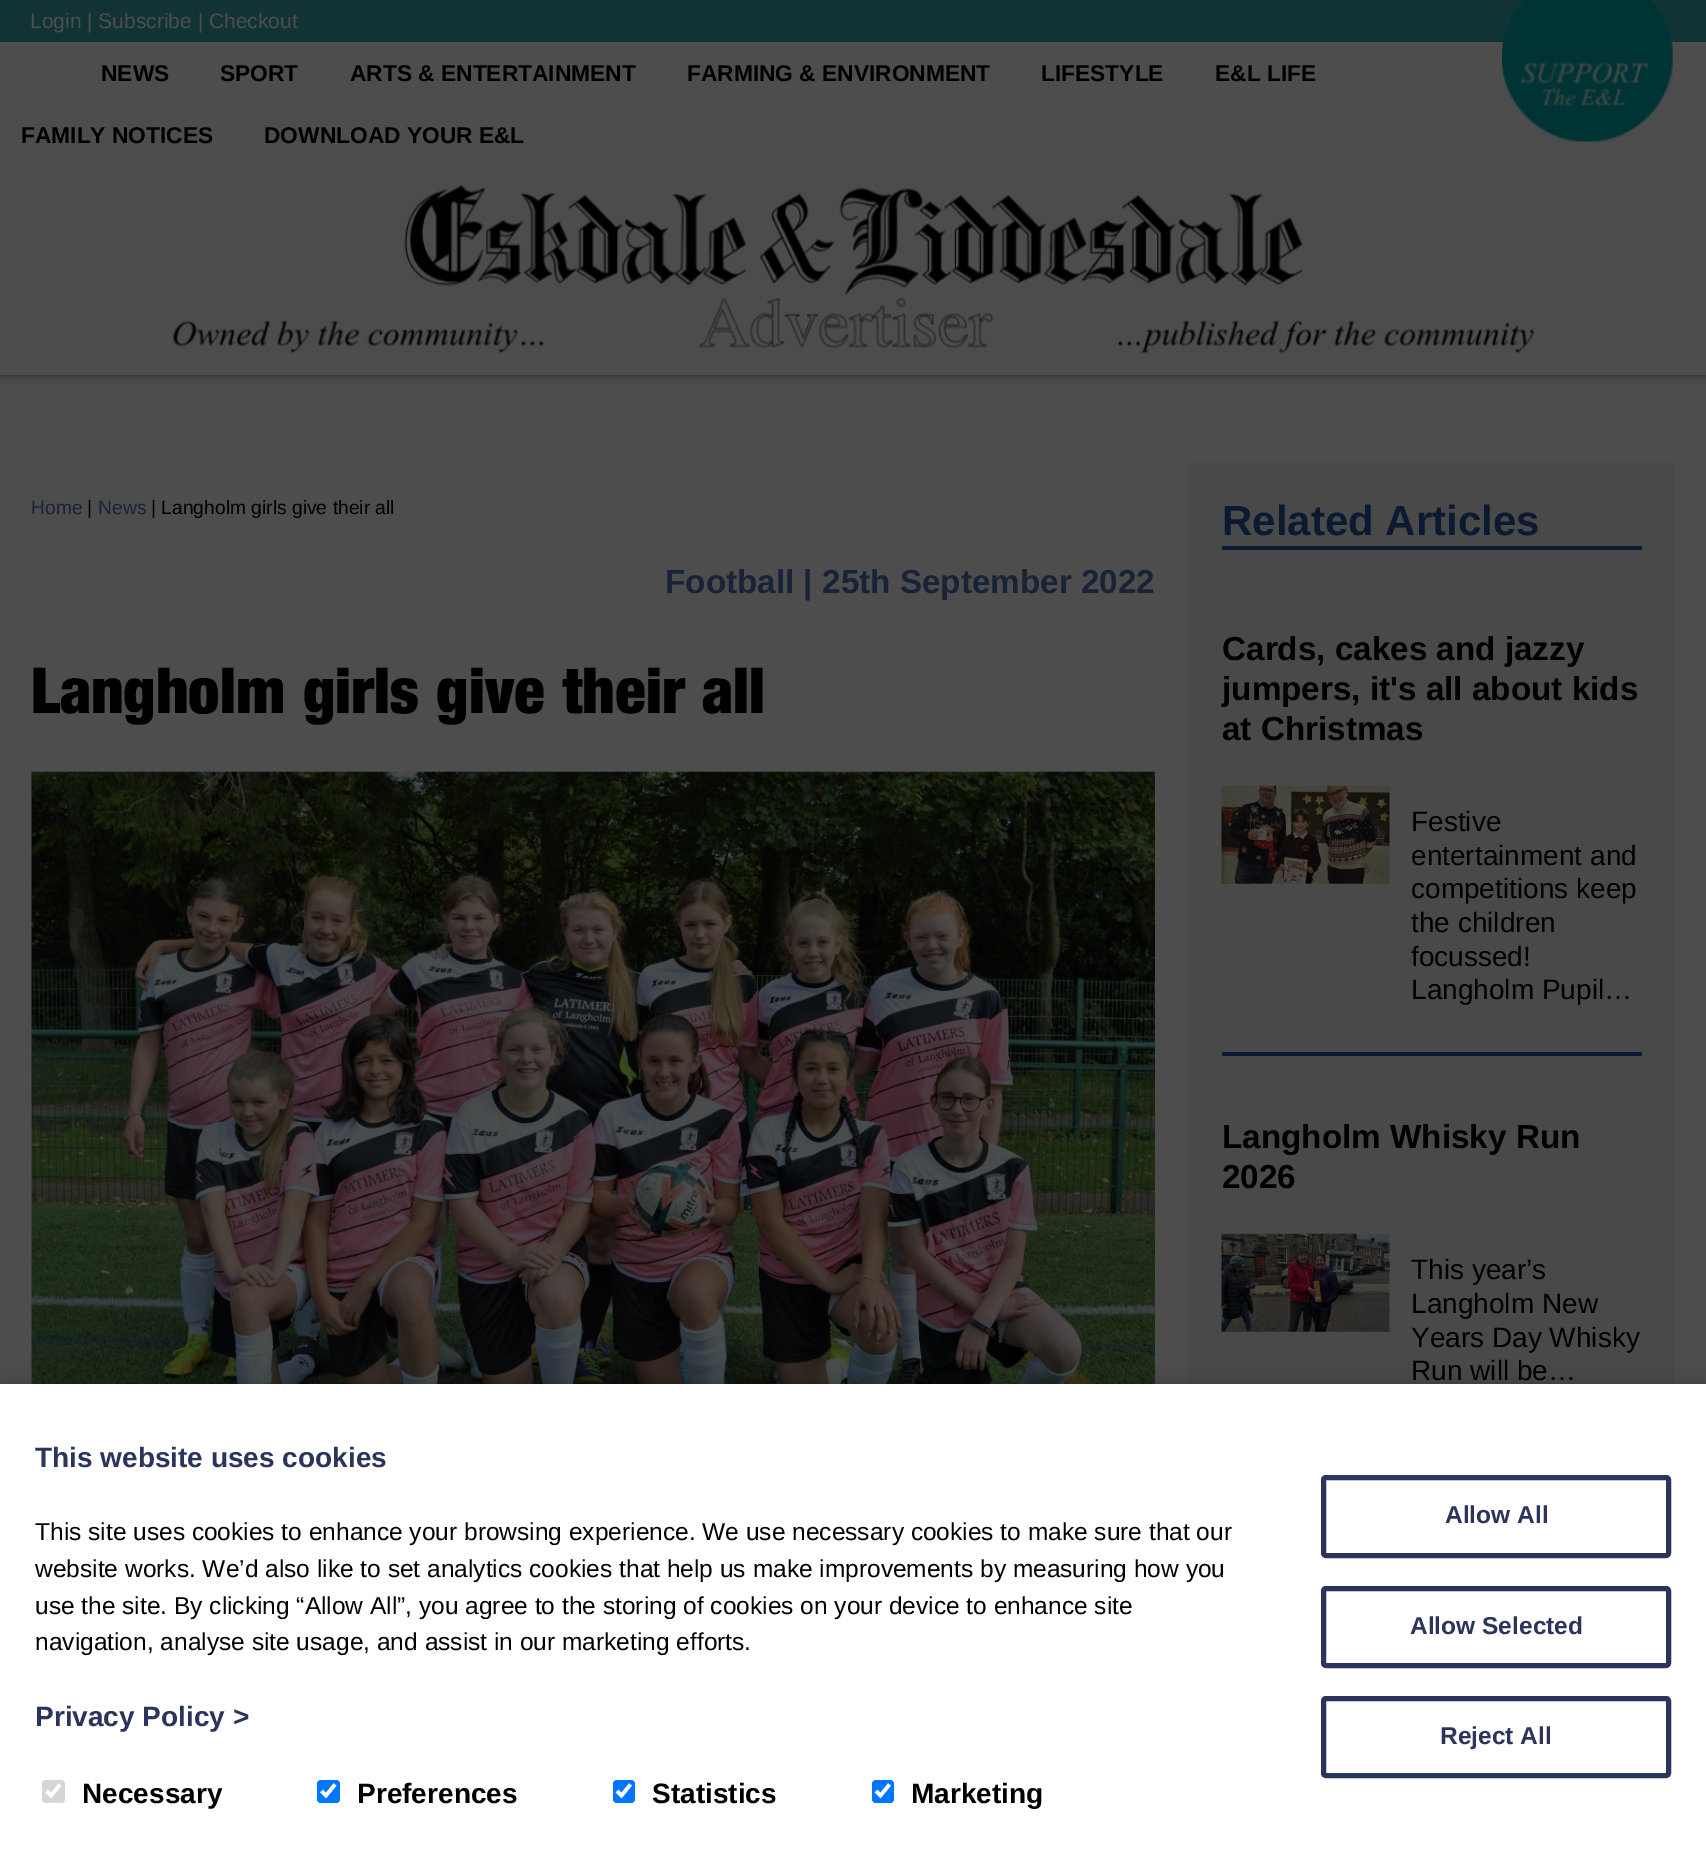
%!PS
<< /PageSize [1706 1867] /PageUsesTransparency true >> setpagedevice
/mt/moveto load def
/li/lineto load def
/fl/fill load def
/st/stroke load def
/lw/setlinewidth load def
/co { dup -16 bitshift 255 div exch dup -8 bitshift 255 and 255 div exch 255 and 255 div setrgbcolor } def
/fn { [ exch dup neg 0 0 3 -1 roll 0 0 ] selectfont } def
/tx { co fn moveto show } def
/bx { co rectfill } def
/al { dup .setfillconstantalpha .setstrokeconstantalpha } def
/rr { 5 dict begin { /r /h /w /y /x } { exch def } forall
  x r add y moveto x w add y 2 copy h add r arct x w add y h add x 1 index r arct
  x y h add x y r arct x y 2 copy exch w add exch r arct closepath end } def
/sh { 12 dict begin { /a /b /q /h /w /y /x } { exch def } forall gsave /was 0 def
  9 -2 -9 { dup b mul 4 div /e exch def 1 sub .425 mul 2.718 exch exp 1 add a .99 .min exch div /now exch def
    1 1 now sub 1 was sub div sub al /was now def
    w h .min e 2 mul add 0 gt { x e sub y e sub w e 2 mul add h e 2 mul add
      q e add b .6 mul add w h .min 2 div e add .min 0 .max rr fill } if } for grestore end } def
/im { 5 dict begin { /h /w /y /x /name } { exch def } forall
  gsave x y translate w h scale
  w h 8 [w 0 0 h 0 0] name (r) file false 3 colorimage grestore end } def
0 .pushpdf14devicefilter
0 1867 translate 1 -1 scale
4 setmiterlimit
0 0 1706 1867 16#4D4D4D bx
16#000000 co
0 0 1706 375 0 4.5 .5 sh
0 42 1706 333 16#4D4D4D bx
0 0 1706 42 16#113334 bx
(media/1.raw) 1502 0 171 142 im
(media/2.raw) 172 184 1363 170 im
(media/3.raw) 31 771 1124 613 im
1188 462 487 922 16#494949 bx
1222 546 420 4 16#0C1A31 bx
1222 1052 420 4 16#0C1A31 bx
(media/4.raw) 1221 785 169 99 im
(media/5.raw) 1221 1233 169 99 im
16#000000 co
0 1384 1706 483 0 9 .2 sh
0 1384 1706 483 16#FFFFFF bx
16#D6D6D6 co
42 1780 23 23 4 rr fl
16#FFFFFF co
3.6 lw
46.5 1791 mt 51 1795.5 li 60 1784.5 li st
16#0075FF co
317 1780 23 23 4 rr fl
16#FFFFFF co
321.5 1791 mt 326 1795.5 li 335 1784.5 li st
16#0075FF co
613 1780 22 23 4 rr fl
16#FFFFFF co
617 1791 mt 621.5 1795.5 li 630.5 1784.5 li st
16#0075FF co
872 1780 22 23 4 rr fl
16#FFFFFF co
876 1791 mt 880.5 1795.5 li 889.5 1784.5 li st
16#2A345D co
5 lw
1323.5 1477.5 345 78 2.5 rr st
1323.5 1588.5 345 77 2.5 rr st
1323.5 1698.5 345 77 2.5 rr st
(Login | Subscribe | Checkout) 30 28 /LiberationSans-Regular 21 16#4D4D4D tx
(NEWS) 101 81 /LiberationSans-Bold 22.75 16#000000 tx
(SPORT) 220 81 /LiberationSans-Bold 22.75 16#000000 tx
(ARTS & ENTERTAINMENT) 350 81 /LiberationSans-Bold 22.75 16#000000 tx
(FARMING & ENVIRONMENT) 687 81 /LiberationSans-Bold 22.75 16#000000 tx
(LIFESTYLE) 1041 81 /LiberationSans-Bold 22.75 16#000000 tx
(E&L LIFE) 1215 81 /LiberationSans-Bold 22.75 16#000000 tx
(FAMILY NOTICES) 21 143 /LiberationSans-Bold 22.75 16#000000 tx
(DOWNLOAD YOUR E&L) 264 143 /LiberationSans-Bold 22.75 16#000000 tx
(Home) 31 514 /LiberationSans-Regular 19.25 16#182336 tx
(|) 87 514 /LiberationSans-Regular 19.25 16#000000 tx
(News) 98 514 /LiberationSans-Regular 19.25 16#182336 tx
(| Langholm girls give their all) 151 514 /LiberationSans-Regular 19.25 16#000000 tx
(Football | 25th September 2022) 665 593 /LiberationSans-Bold 33.25 16#182336 tx
(Langholm girls give their all) 31 713 /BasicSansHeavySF-Bold 63 16#000000 tx
(Related Articles) 1222 535 /LiberationSans-Bold 42 16#0C1A31 tx
(Cards, cakes and jazzy) 1222 660 /LiberationSans-Bold 33.25 16#000000 tx
(jumpers, it's all about kids) 1222 700 /LiberationSans-Bold 33.25 16#000000 tx
(at Christmas) 1222 740 /LiberationSans-Bold 33.25 16#000000 tx
(Festive) 1411 831 /LiberationSans-Regular 28 16#000000 tx
(entertainment and) 1411 865 /LiberationSans-Regular 28 16#000000 tx
(competitions keep) 1411 898 /LiberationSans-Regular 28 16#000000 tx
(the children) 1411 932 /LiberationSans-Regular 28 16#000000 tx
(focussed!) 1411 966 /LiberationSans-Regular 28 16#000000 tx
(Langholm Pupil…) 1411 999 /LiberationSans-Regular 28 16#000000 tx
(Langholm Whisky Run) 1222 1148 /LiberationSans-Bold 33.25 16#000000 tx
(2026) 1222 1188 /LiberationSans-Bold 33.25 16#000000 tx
(This year’s) 1411 1279 /LiberationSans-Regular 28 16#000000 tx
(Langholm New) 1411 1313 /LiberationSans-Regular 28 16#000000 tx
(Years Day Whisky) 1411 1347 /LiberationSans-Regular 28 16#000000 tx
(Run will be…) 1411 1380 /LiberationSans-Regular 28 16#000000 tx
(This website uses cookies) 35 1467 /LiberationSans-Bold 28 16#2A345D tx
(This site uses cookies to enhance your browsing experience. We use necessary cookies to make sure that our) 35 1540 /LiberationSans-Regular 24.5 16#000000 tx
(website works. We’d also like to set analytics cookies that help us make improvements by measuring how you) 35 1577 /LiberationSans-Regular 24.5 16#000000 tx
(use the site. By clicking “Allow All”, you agree to the storing of cookies on your device to enhance site) 35 1614 /LiberationSans-Regular 24.5 16#000000 tx
(navigation, analyse site usage, and assist in our marketing efforts.) 35 1650 /LiberationSans-Regular 24.5 16#000000 tx
(Privacy Policy >) 35 1726 /LiberationSans-Bold 28 16#2A345D tx
(Necessary) 82 1803 /LiberationSans-Bold 28 16#000000 tx
(Preferences) 357 1803 /LiberationSans-Bold 28 16#000000 tx
(Statistics) 652 1803 /LiberationSans-Bold 28 16#000000 tx
(Marketing) 911 1803 /LiberationSans-Bold 28 16#000000 tx
(Allow All) 1445 1523 /LiberationSans-Bold 24.5 16#2A345D tx
(Allow Selected) 1410 1634 /LiberationSans-Bold 24.5 16#2A345D tx
(Reject All) 1440 1744 /LiberationSans-Bold 24.5 16#2A345D tx
.poppdf14devicefilter showpage
